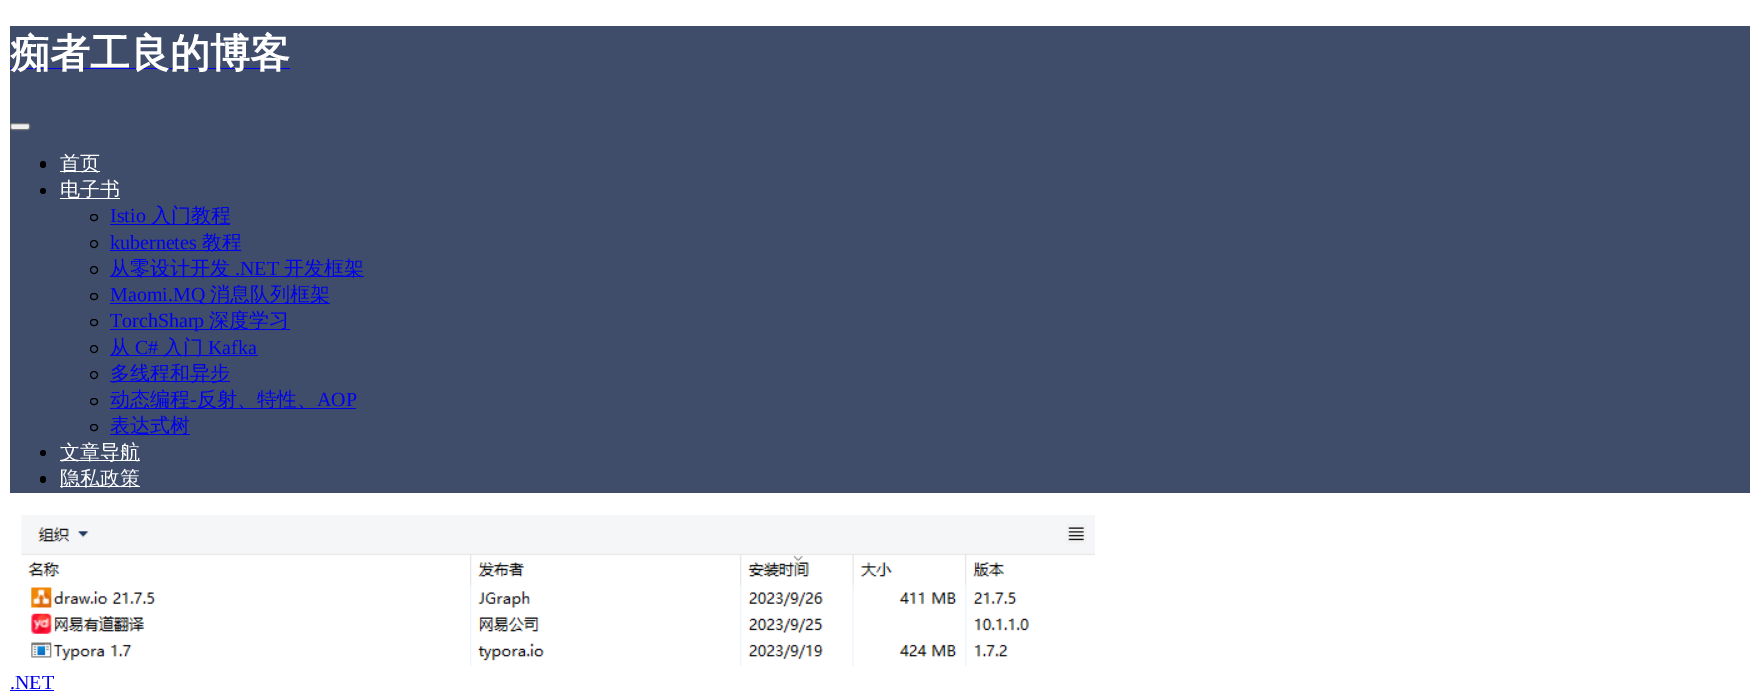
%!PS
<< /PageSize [1759 700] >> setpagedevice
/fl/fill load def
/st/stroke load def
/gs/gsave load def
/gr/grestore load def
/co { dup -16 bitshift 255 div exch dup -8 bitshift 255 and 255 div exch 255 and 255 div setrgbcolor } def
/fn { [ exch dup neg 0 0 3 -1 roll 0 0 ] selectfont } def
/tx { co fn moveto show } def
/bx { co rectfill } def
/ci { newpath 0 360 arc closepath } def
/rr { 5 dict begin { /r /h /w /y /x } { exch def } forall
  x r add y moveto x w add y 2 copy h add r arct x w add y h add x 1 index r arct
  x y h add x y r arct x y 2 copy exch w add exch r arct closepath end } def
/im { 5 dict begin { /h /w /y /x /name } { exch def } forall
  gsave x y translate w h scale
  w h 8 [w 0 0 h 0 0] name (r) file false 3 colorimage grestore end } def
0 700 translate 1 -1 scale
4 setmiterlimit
0 0 1759 700 16#FFFFFF bx
10 26 1740 467 16#3F4D6B bx
10 68 280 1 16#0000EE bx
16#EFEFEF co
10.5 123.5 19 6 2 rr gs fl gr
16#767676 co
st
16#000000 co
40 161 6 7 3 rr fl
60 171 40 1 16#FFFFFF bx
16#000000 co
43 191 3 ci fl
60 198 60 1 16#FFFFFF bx
16#000000 co
90.5 214.5 7 6 3 rr st
110 224 120 1 16#0000EE bx
16#000000 co
94 244 3.5 ci st
110 250 131 1 16#0000EE bx
16#000000 co
94 270 3.5 ci st
110 276 254 1 16#0000EE bx
16#000000 co
90.5 293.5 7 6 3 rr st
110 303 220 1 16#0000EE bx
16#000000 co
90.5 319.5 7 6 3 rr st
110 329 180 1 16#0000EE bx
16#000000 co
94 349 3.5 ci st
110 355 148 1 16#0000EE bx
16#000000 co
94 375 3.5 ci st
110 381 120 1 16#0000EE bx
16#000000 co
90.5 398.5 7 6 3 rr st
110 408 246 1 16#0000EE bx
16#000000 co
90.5 424.5 7 6 3 rr st
110 434 80 1 16#0000EE bx
16#000000 co
43 453 3 ci fl
60 460 80 1 16#FFFFFF bx
16#000000 co
40 476 6 7 3 rr fl
60 486 80 1 16#FFFFFF bx
(media/1.raw) 21 515 1074 152 im
10 690 44 1 16#0000EE bx
(痴者工良的博客) 10 67 /WenQuanYiZenHei-Bold 40 16#FFFFFF tx
(首页) 60 170 /WenQuanYiZenHei-Medium 20 16#FFFFFF tx
(电子书) 60 196 /WenQuanYiZenHei-Medium 20 16#FFFFFF tx
(Istio) 110 222 /LiberationSerif-Regular 20 16#0000EE tx
(入门教程) 151 222 /WenQuanYiZenHei-Medium 20 16#0000EE tx
(kubernetes) 110 249 /LiberationSerif-Regular 20 16#0000EE tx
(教程) 202 249 /WenQuanYiZenHei-Medium 20 16#0000EE tx
(从零设计开发) 110 275 /WenQuanYiZenHei-Medium 20 16#0000EE tx
(.NET) 235 275 /LiberationSerif-Regular 20 16#0000EE tx
(开发框架) 284 275 /WenQuanYiZenHei-Medium 20 16#0000EE tx
(Maomi.MQ) 110 301 /LiberationSerif-Regular 20 16#0000EE tx
(消息队列框架) 210 301 /WenQuanYiZenHei-Medium 20 16#0000EE tx
(TorchSharp) 110 327 /LiberationSerif-Regular 20 16#0000EE tx
(深度学习) 209 327 /WenQuanYiZenHei-Medium 20 16#0000EE tx
(从) 110 354 /WenQuanYiZenHei-Medium 20 16#0000EE tx
(C#) 135 354 /LiberationSerif-Regular 20 16#0000EE tx
(入门) 163 354 /WenQuanYiZenHei-Medium 20 16#0000EE tx
(Kafka) 208 354 /LiberationSerif-Regular 20 16#0000EE tx
(多线程和异步) 110 380 /WenQuanYiZenHei-Medium 20 16#0000EE tx
(动态编程) 110 406 /WenQuanYiZenHei-Medium 20 16#0000EE tx
(-) 190 406 /LiberationSerif-Regular 20 16#0000EE tx
(反射、特性、) 197 406 /WenQuanYiZenHei-Medium 20 16#0000EE tx
(AOP) 317 406 /LiberationSerif-Regular 20 16#0000EE tx
(表达式树) 110 432 /WenQuanYiZenHei-Medium 20 16#0000EE tx
(文章导航) 60 459 /WenQuanYiZenHei-Medium 20 16#FFFFFF tx
(隐私政策) 60 485 /WenQuanYiZenHei-Medium 20 16#FFFFFF tx
(.NET) 10 689 /LiberationSerif-Regular 20 16#0000EE tx
showpage
